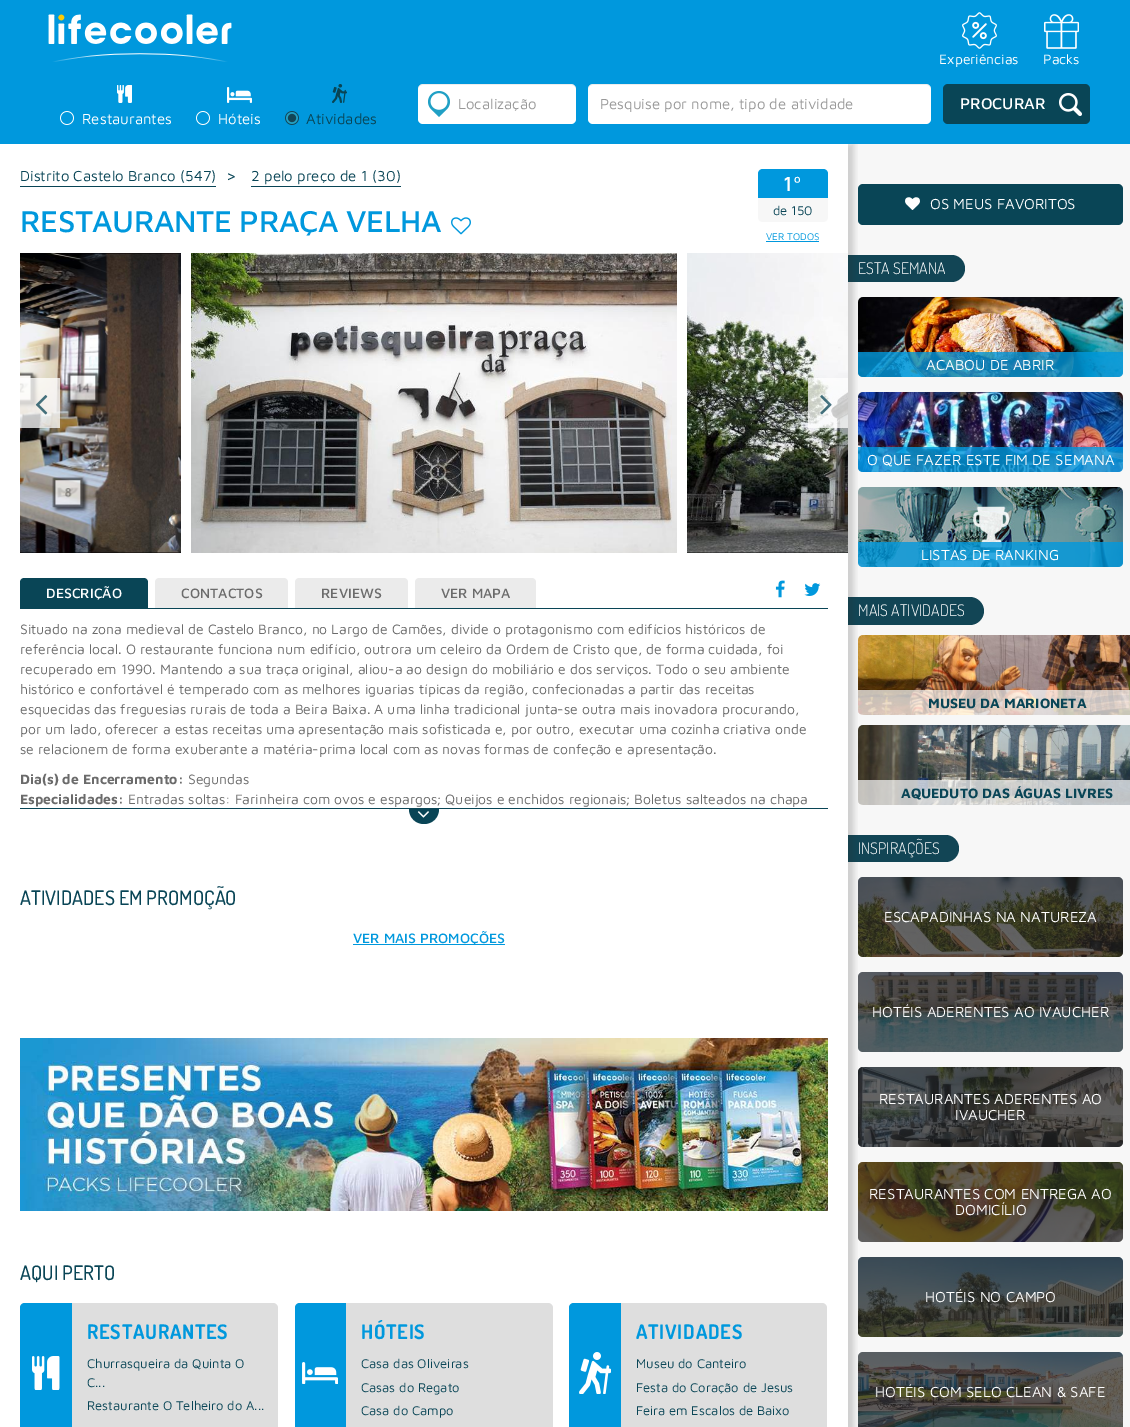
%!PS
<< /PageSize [1130 1427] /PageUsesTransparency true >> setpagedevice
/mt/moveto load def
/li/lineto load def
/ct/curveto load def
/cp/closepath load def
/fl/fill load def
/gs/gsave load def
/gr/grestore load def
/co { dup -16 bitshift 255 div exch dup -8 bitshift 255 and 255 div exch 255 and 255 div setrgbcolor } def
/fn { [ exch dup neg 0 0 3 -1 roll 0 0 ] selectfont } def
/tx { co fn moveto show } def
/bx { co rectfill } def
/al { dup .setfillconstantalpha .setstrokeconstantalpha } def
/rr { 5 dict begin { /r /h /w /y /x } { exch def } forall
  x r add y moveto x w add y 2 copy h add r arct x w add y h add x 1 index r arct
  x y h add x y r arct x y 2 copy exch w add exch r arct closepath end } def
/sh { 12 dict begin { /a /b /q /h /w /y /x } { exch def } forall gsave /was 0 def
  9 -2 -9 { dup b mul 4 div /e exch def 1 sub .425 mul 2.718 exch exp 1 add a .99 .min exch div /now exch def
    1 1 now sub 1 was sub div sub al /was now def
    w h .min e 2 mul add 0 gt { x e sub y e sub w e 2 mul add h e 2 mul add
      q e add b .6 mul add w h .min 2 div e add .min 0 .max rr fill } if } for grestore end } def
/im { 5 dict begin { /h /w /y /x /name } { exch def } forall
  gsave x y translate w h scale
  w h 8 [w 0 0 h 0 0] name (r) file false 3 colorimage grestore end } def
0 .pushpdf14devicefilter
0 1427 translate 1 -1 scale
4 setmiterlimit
0 0 1130 1427 16#FFFFFF bx
848 144 282 1283 16#F7F7F7 bx
16#094556 co
858 184 265 41 5 rr fl
16#124555 co
848 255 mt 951.5 255 li 959 255 965 261 965 268.5 ct 965 276 959 282 951.5 282 ct 848 282 li cp fl
(media/25.raw) 858 297 265 80 im
0.8 al
16#0098DD co
858 352 mt 1123 352 li 1123 372 li 1123 375 1121 377 1118 377 ct 863 377 li 860 377 858 375 858 372 ct cp fl
1 al
(media/26.raw) 858 392 265 80 im
0.8 al
858 447 mt 1123 447 li 1123 467 li 1123 470 1121 472 1118 472 ct 863 472 li 860 472 858 470 858 467 ct cp fl
1 al
(media/27.raw) 858 487 265 80 im
0.8 al
858 542 mt 1123 542 li 1123 562 li 1123 565 1121 567 1118 567 ct 863 567 li 860 567 858 565 858 562 ct cp fl
1 al
16#124555 co
848 597 mt 970 597 li 977.5 597 984 603.5 984 611 ct 984 618.5 977.5 625 970 625 ct 848 625 li cp fl
(media/28.raw) 858 635 272 80 im
0.7 al
16#FFFFFF co
858 690 mt 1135 690 li 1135 710 li 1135 713 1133 715 1130 715 ct 863 715 li 860 715 858 713 858 710 ct cp fl
1 al
(media/29.raw) 858 725 272 80 im
0.7 al
858 780 mt 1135 780 li 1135 800 li 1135 803 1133 805 1130 805 ct 863 805 li 860 805 858 803 858 800 ct cp fl
1 al
16#124555 co
848 835 mt 945.5 835 li 953 835 959 841 959 848.5 ct 959 856 953 862 945.5 862 ct 848 862 li cp fl
(media/30.raw) 858 877 265 80 im
0.7 al
16#232323 co
858 877 265 80 5 rr fl
1 al
(media/31.raw) 858 972 265 80 im
0.7 al
858 972 265 80 5 rr fl
1 al
(media/32.raw) 858 1067 265 80 im
0.7 al
858 1067 265 80 5 rr fl
1 al
(media/33.raw) 858 1162 265 80 im
0.7 al
858 1162 265 80 5 rr fl
1 al
(media/34.raw) 858 1257 265 80 im
0.7 al
858 1257 265 80 5 rr fl
1 al
(media/35.raw) 858 1352 265 75 im
0.7 al
858 1352 265 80 5 rr fl
gs
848 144 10 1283 rectclip
1 al
16#292929 co
6 144 848 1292 0 3 .2 sh
gr
1 al
0 0 1130 144 16#0098DD bx
(media/1.raw) 48 14 184 48 im
(media/2.raw) 962 12 35 37 im
(media/3.raw) 1044 14 35 35 im
16#FFFFFF co
418 84 158 40 5 rr fl
(media/4.raw) 428 91 22 26 im
0.07 al
16#000000 co
423 85 mt 571 85 li 574 85 576 87 576 90 ct 576 89 li 576 86 574 84 571 84 ct 423 84 li 420 84 418 86 418 89 ct 418 90 li 418 87 420 85 423 85 ct cp fl
1 al
16#FFFFFF co
588 84 343 40 5 rr fl
0.07 al
16#000000 co
593 85 mt 926 85 li 929 85 931 87 931 90 ct 931 87 929 84 926 84 ct 593 84 li 590 84 588 87 588 90 ct 588 87 590 85 593 85 ct cp fl
1 al
16#094556 co
943 84 147 40 5 rr fl
(media/5.raw) 1059 93 23 23 im
(media/6.raw) 117 85 15 18 im
(media/7.raw) 60 111 14 14 im
(media/8.raw) 227 87 25 16 im
(media/7.raw) 196 111 14 14 im
(media/9.raw) 332 84 15 19 im
(media/10.raw) 285 111 14 14 im
20 186 196 1 16#094556 bx
251 186 150 1 16#094556 bx
(media/11.raw) 451 217 20 18 im
16#0098DD co
763 169 mt 823 169 li 826 169 828 171 828 174 ct 828 198 li 758 198 li 758 174 li 758 171 760 169 763 169 ct cp fl
16#F7F7F7 co
758 198 mt 828 198 li 828 217 li 828 220 826 222 823 222 ct 763 222 li 760 222 758 220 758 217 ct cp fl
766 241 53 1 16#0098DD bx
(media/12.raw) 20 253 161 300 im
(media/13.raw) 191 253 486 300 im
(media/14.raw) 687 253 161 300 im
0.75 al
20 378 40 50 16#FFFFFF bx
1 al
(media/15.raw) 35 395 13 20 im
0.75 al
808 378 40 50 16#FFFFFF bx
1 al
(media/16.raw) 820 395 12 20 im
20 608 808 1 16#094556 bx
24 578 mt 144 578 li 146 578 148 580 148 582 ct 148 608 li 20 608 li 20 582 li 20 580 22 578 24 578 ct cp fl
16#EBEBEB co
159 578 mt 284 578 li 286 578 288 580 288 582 ct 288 608 li 155 608 li 155 582 li 155 580 157 578 159 578 ct cp fl
299 578 mt 404 578 li 406 578 408 580 408 582 ct 408 608 li 295 608 li 295 582 li 295 580 297 578 299 578 ct cp fl
419 578 mt 532 578 li 534 578 536 580 536 582 ct 536 608 li 415 608 li 415 582 li 415 580 417 578 419 578 ct cp fl
(media/17.raw) 775 580 10 18 im
(media/18.raw) 804 583 17 13 im
20 808 808 1 16#094556 bx
409 809 mt 439 809 li 439 817.5 432.5 824 424 824 ct 415.5 824 409 817.5 409 809 ct cp fl
(media/19.raw) 417 811 12 7 im
353 944 152 1 16#0098DD bx
(media/20.raw) 20 1038 808 173 im
16#DEDEDE co
20 1303 258 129 5 rr fl
16#0098DD co
25 1303 mt 72 1303 li 72 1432 li 25 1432 li 22 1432 20 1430 20 1427 ct 20 1308 li 20 1305 22 1303 25 1303 ct cp fl
(media/21.raw) 32 1356 28 34 im
16#DEDEDE co
295 1303 258 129 5 rr fl
16#0098DD co
300 1303 mt 346 1303 li 346 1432 li 300 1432 li 297 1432 295 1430 295 1427 ct 295 1308 li 295 1305 297 1303 300 1303 ct cp fl
(media/22.raw) 302 1362 36 22 im
16#DEDEDE co
569 1303 258 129 5 rr fl
16#0098DD co
574 1303 mt 621 1303 li 621 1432 li 574 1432 li 571 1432 569 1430 569 1427 ct 569 1308 li 569 1305 571 1303 574 1303 ct cp fl
(media/23.raw) 579 1352 32 42 im
(media/24.raw) 905 197 15 13 im
(Experiências) 939 64 /MavenPro-Regular 14 16#FFFFFF tx
(Packs) 1043 64 /MavenPro-Regular 14 16#FFFFFF tx
(Localização) 458 109 /MavenPro-Regular 15 16#999999 tx
gs
600 95 319 17 rectclip
(Pesquise por nome, tipo de atividade) 600 109 /MavenPro-Regular 15 16#999999 tx
gr
(PROCURAR) 960 109 /MavenPro-Medium 16 16#FFFFFF tx
(Restaurantes) 82 124 /MavenPro-Regular 15 16#FFFFFF tx
(Hóteis) 218 124 /MavenPro-Regular 15 16#FFFFFF tx
(Atividades) 306 124 /MavenPro-Regular 15 16#094556 tx
(Distrito Castelo Branco \(547\)) 20 181 /MavenPro-Regular 15 16#094556 tx
(>) 226 181 /MavenPro-Regular 16 16#094556 tx
(2 pelo preço de 1 \(30\)) 251 181 /MavenPro-Regular 15 16#094556 tx
/MavenPro-Medium 31 fn
16#0098DD co
20 232 mt -.5 0 (RESTAURANTE PRAÇA VELHA) ashow
(1º) 783 191 /MavenPro-Medium 21 16#FFFFFF tx
(de 150) 773 215 /MavenPro-Regular 13 16#094556 tx
(VER TODOS) 766 240 /MavenPro-Regular 10 16#0098DD tx
(DESCRIÇÃO) 46 598 /MavenPro-Medium 14 16#FFFFFF tx
(CONTACTOS) 181 598 /MavenPro-Medium 14 16#6B6B6B tx
(REVIEWS) 321 598 /MavenPro-Medium 14 16#6B6B6B tx
(VER MAPA) 441 598 /MavenPro-Medium 14 16#6B6B6B tx
(Situado na zona medieval de Castelo Branco, no Largo de Camões, divide o protagonismo com edifícios históricos de) 20 634 /MavenPro-Regular 14 16#6B6B6B tx
(referência local. O restaurante funciona num edifício, outrora um celeiro da Ordem de Cristo que, de forma cuidada, foi) 20 654 /MavenPro-Regular 14 16#6B6B6B tx
(recuperado em 1990. Mantendo a sua traça original, aliou-a ao design do mobiliário e dos serviços. Todo o seu ambiente) 20 674 /MavenPro-Regular 14 16#6B6B6B tx
(histórico e confortável é temperado com as melhores iguarias típicas da região, confecionadas a partir das receitas) 20 694 /MavenPro-Regular 14 16#6B6B6B tx
(esquecidas das freguesias rurais de toda a Beira Baixa. A uma linha tradicional junta-se outra mais inovadora procurando,) 20 714 /MavenPro-Regular 14 16#6B6B6B tx
(por um lado, oferecer a estas receitas uma apresentação mais sofisticada e, por outro, executar uma cozinha criativa onde) 20 734 /MavenPro-Regular 14 16#6B6B6B tx
(se relacionem de forma exuberante a matéria-prima local com as novas formas de confeção e apresentação.) 20 754 /MavenPro-Regular 14 16#6B6B6B tx
(Dia\(s\) de Encerramento:) 20 784 /MavenPro-Bold 14 16#6B6B6B tx
(Segundas) 188 784 /MavenPro-Regular 14 16#6B6B6B tx
(Especialidades:) 20 804 /MavenPro-Bold 14 16#6B6B6B tx
(Entradas soltas: Farinheira com ovos e espargos; Queijos e enchidos regionais; Boletus salteados na chapa) 128 804 /MavenPro-Regular 14 16#6B6B6B tx
(ATIVIDADES EM PROMOÇÃO) 20 905 /Dosis-Medium 20 16#094556 tx
(VER MAIS PROMOÇÕES) 353 943 /MavenPro-Medium 14 16#0098DD tx
(AQUI PERTO) 20 1280 /Dosis-Medium 20 16#094556 tx
/Dosis-Bold 20 fn
16#0098DD co
87 1339 mt .75 0 (RESTAURANTES) ashow
(Churrasqueira da Quinta O) 87 1368 /MavenPro-Regular 13 16#094556 tx
(C...) 87 1387 /MavenPro-Regular 13 16#094556 tx
(Restaurante O Telheiro do A...) 87 1410 /MavenPro-Regular 13 16#094556 tx
/Dosis-Bold 20 fn
16#0098DD co
361 1339 mt .75 0 (HÓTEIS) ashow
(Casa das Oliveiras) 361 1368 /MavenPro-Regular 13 16#094556 tx
(Casas do Regato) 361 1392 /MavenPro-Regular 13 16#094556 tx
(Casa do Campo) 361 1415 /MavenPro-Regular 13 16#094556 tx
/Dosis-Bold 20 fn
16#0098DD co
636 1339 mt .75 0 (ATIVIDADES) ashow
(Museu do Canteiro) 636 1368 /MavenPro-Regular 13 16#094556 tx
(Festa do Coração de Jesus) 636 1392 /MavenPro-Regular 13 16#094556 tx
(Feira em Escalos de Baixo) 636 1415 /MavenPro-Regular 13 16#094556 tx
(OS MEUS FAVORITOS) 930 209 /MavenPro-Regular 15 16#FFFFFF tx
(ESTA SEMANA) 858 274 /Dosis-Light 16 16#FFFFFF tx
(ACABOU DE ABRIR) 926 370 /MavenPro-Regular 15 16#FFFFFF tx
(O QUE FAZER ESTE FIM DE SEMANA) 867 465 /MavenPro-Regular 15 16#FFFFFF tx
(LISTAS DE RANKING) 921 560 /MavenPro-Regular 15 16#FFFFFF tx
(MAIS ATIVIDADES) 858 616 /Dosis-Light 16 16#FFFFFF tx
(MUSEU DA MARIONETA) 928 708 /MavenPro-Bold 14 16#094556 tx
(AQUEDUTO DAS ÁGUAS LIVRES) 901 798 /MavenPro-Bold 14 16#094556 tx
(INSPIRAÇÕES) 858 854 /Dosis-Light 16 16#FFFFFF tx
(ESCAPADINHAS NA NATUREZA) 884 922 /MavenPro-Regular 15 16#FFFFFF tx
(HOTÉIS ADERENTES AO IVAUCHER) 872 1017 /MavenPro-Regular 15 16#FFFFFF tx
(RESTAURANTES ADERENTES AO) 879 1104 /MavenPro-Regular 15 16#FFFFFF tx
(IVAUCHER) 955 1120 /MavenPro-Regular 15 16#FFFFFF tx
(RESTAURANTES COM ENTREGA AO) 869 1199 /MavenPro-Regular 15 16#FFFFFF tx
(DOMICÍLIO) 955 1215 /MavenPro-Regular 15 16#FFFFFF tx
(HOTÉIS NO CAMPO) 925 1302 /MavenPro-Regular 15 16#FFFFFF tx
(HOTÉIS COM SELO CLEAN & SAFE) 875 1397 /MavenPro-Regular 15 16#FFFFFF tx
.poppdf14devicefilter showpage
